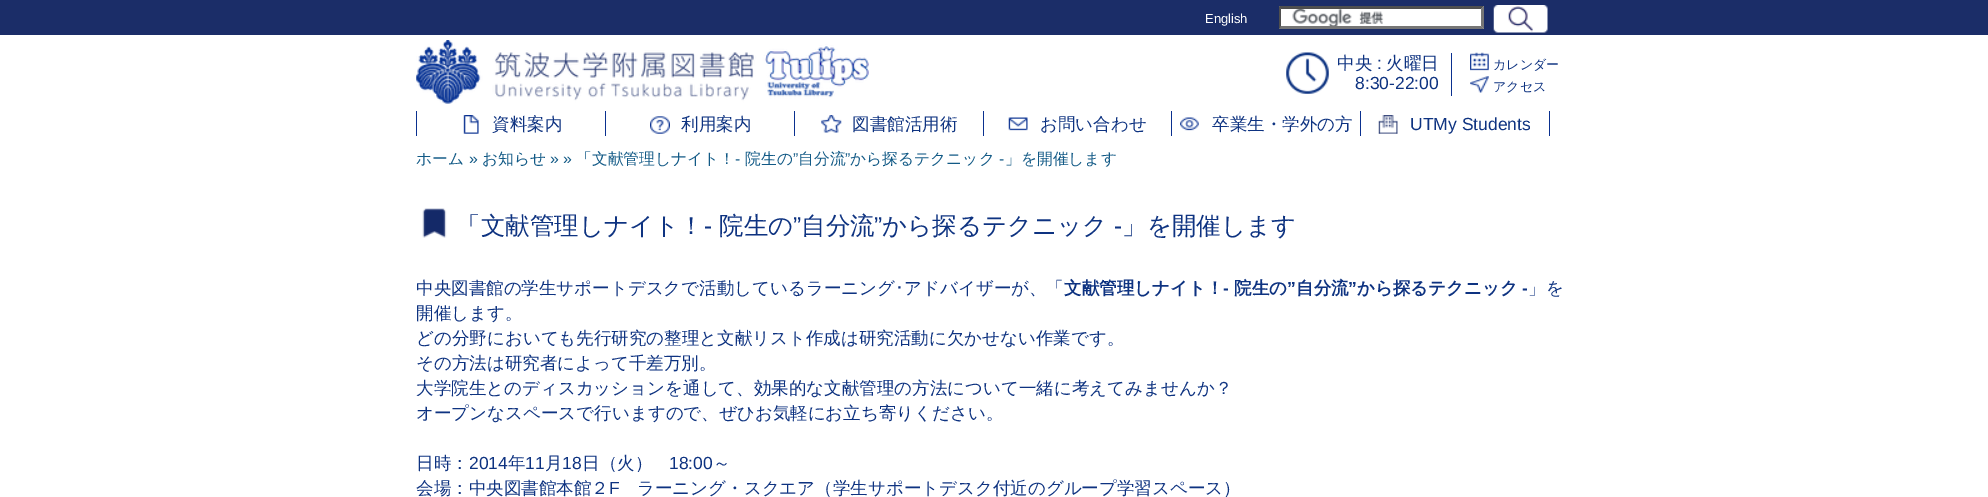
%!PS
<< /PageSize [1988 497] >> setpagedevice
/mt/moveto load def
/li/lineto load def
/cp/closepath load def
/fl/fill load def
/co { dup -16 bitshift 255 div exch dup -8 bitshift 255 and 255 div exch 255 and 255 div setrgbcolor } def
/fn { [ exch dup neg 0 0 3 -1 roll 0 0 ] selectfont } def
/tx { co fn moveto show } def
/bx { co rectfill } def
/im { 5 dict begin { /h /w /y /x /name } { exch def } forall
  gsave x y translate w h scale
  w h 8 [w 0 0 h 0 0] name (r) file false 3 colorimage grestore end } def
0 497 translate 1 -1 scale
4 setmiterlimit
0 0 1988 497 16#FFFFFF bx
0 0 1988 35 16#1B2D68 bx
1279 6 205 23 16#FFFFFF bx
(media/1.raw) 1292 9 92 17 im
16#4F4F4F co
1279 6 mt 1484 6 li 1481 9 li 1281 9 li cp fl
16#767676 co
1484 6 mt 1484 29 li 1481 26 li 1481 9 li cp fl
1484 29 mt 1279 29 li 1281 26 li 1481 26 li cp fl
16#4F4F4F co
1279 29 mt 1279 6 li 1281 9 li 1281 26 li cp fl
(media/2.raw) 1493 5 55 28 im
(media/3.raw) 416 40 453 64 im
(media/4.raw) 1286 52 43 42 im
1451 53 1 43 16#0A308F bx
(media/5.raw) 1470 52 19 19 im
(media/6.raw) 1470 76 19 17 im
605 111 1 25 16#0A308F bx
416 111 1 25 16#0A308F bx
(media/7.raw) 463 115 16 19 im
794 111 1 25 16#0A308F bx
(media/8.raw) 650 116 20 18 im
983 111 1 25 16#0A308F bx
(media/9.raw) 821 115 21 18 im
1171 111 1 25 16#0A308F bx
(media/10.raw) 1008 117 20 14 im
1360 111 1 25 16#0A308F bx
(media/11.raw) 1180 117 19 14 im
1549 111 1 25 16#0A308F bx
(media/12.raw) 1378 115 20 19 im
(media/13.raw) 422 208 25 30 im
(English) 1205 23 /LiberationSans-Regular 13 16#FFFFFF tx
(中央) 1337 69 /WenQuanYiZenHei-Medium 17.5 16#0E3381 tx
(:) 1377 69 /LiberationSans-Regular 17.5 16#0E3381 tx
(火曜日) 1386 69 /WenQuanYiZenHei-Medium 17.5 16#0E3381 tx
(8:30-22:00) 1355 89 /LiberationSans-Regular 17.5 16#0E3381 tx
(カレンダー) 1493 69 /WenQuanYiZenHei-Medium 13 16#0E3381 tx
(アクセス) 1493 91 /WenQuanYiZenHei-Medium 13 16#0E3381 tx
(資料案内) 492 130 /WenQuanYiZenHei-Medium 17.5 16#0E3381 tx
(利用案内) 681 130 /WenQuanYiZenHei-Medium 17.5 16#0E3381 tx
(図書館活用術) 852 130 /WenQuanYiZenHei-Medium 17.5 16#0E3381 tx
(お問い合わせ) 1040 130 /WenQuanYiZenHei-Medium 17.5 16#0E3381 tx
(卒業生・学外の方) 1212 130 /WenQuanYiZenHei-Medium 17.5 16#0E3381 tx
(UTMy Students) 1410 130 /LiberationSans-Regular 17.5 16#0E3381 tx
(ホーム) 416 164 /WenQuanYiZenHei-Medium 15.75 16#125A86 tx
(お知らせ) 482 164 /WenQuanYiZenHei-Medium 15.75 16#125A86 tx
(「文献管理しナイト！) 576 164 /WenQuanYiZenHei-Medium 15.75 16#125A86 tx
(院生の) 745 164 /WenQuanYiZenHei-Medium 15.75 16#125A86 tx
(”) 793 164 /LiberationSans-Regular 15.75 16#125A86 tx
(自分流) 798 164 /WenQuanYiZenHei-Medium 15.75 16#125A86 tx
(”) 845 164 /LiberationSans-Regular 15.75 16#125A86 tx
(から探るテクニック) 850 164 /WenQuanYiZenHei-Medium 15.75 16#125A86 tx
(」を開催します) 1005 164 /WenQuanYiZenHei-Medium 15.75 16#125A86 tx
(») 469 164 /LiberationSans-Regular 15.75 16#125A86 tx
(» ») 550 164 /LiberationSans-Regular 15.75 16#125A86 tx
(-) 735 164 /LiberationSans-Regular 15.75 16#125A86 tx
(-) 999 164 /LiberationSans-Regular 15.75 16#125A86 tx
(「文献管理しナイト！) 456 234 /WenQuanYiZenHei-Medium 24.5 16#0E3381 tx
(院生の) 719 234 /WenQuanYiZenHei-Medium 24.5 16#0E3381 tx
(”) 793 234 /LiberationSans-Regular 24.5 16#0E3381 tx
(自分流) 801 234 /WenQuanYiZenHei-Medium 24.5 16#0E3381 tx
(”) 874 234 /LiberationSans-Regular 24.5 16#0E3381 tx
(から探るテクニック) 882 234 /WenQuanYiZenHei-Medium 24.5 16#0E3381 tx
(」を開催します) 1122 234 /WenQuanYiZenHei-Medium 24.5 16#0E3381 tx
(-) 704 234 /LiberationSans-Regular 24.5 16#0E3381 tx
(-) 1114 234 /LiberationSans-Regular 24.5 16#0E3381 tx
(中央図書館の学生サポートデスクで活動しているラーニング) 416 294 /WenQuanYiZenHei-Medium 17.5 16#0E3381 tx
(･) 895 294 /IPAPGothic-Regular 17.5 16#0E3381 tx
(アドバイザーが、「) 904 294 /WenQuanYiZenHei-Medium 17.5 16#0E3381 tx
(文献管理しナイト！) 1064 294 /WenQuanYiZenHei-Bold 17.5 16#0E3381 tx
(院生の) 1234 294 /WenQuanYiZenHei-Bold 17.5 16#0E3381 tx
(”) 1287 294 /LiberationSans-Bold 17.5 16#0E3381 tx
(自分流) 1296 294 /WenQuanYiZenHei-Bold 17.5 16#0E3381 tx
(”) 1348 294 /LiberationSans-Bold 17.5 16#0E3381 tx
(から探るテクニック) 1357 294 /WenQuanYiZenHei-Bold 17.5 16#0E3381 tx
(」を) 1528 294 /WenQuanYiZenHei-Medium 17.5 16#0E3381 tx
(-) 1223 294 /LiberationSans-Bold 17.5 16#0E3381 tx
(-) 1522 294 /LiberationSans-Bold 17.5 16#0E3381 tx
(開催します。) 416 319 /WenQuanYiZenHei-Medium 17.5 16#0E3381 tx
(どの分野においても先行研究の整理と文献リスト作成は研究活動に欠かせない作業です。) 416 344 /WenQuanYiZenHei-Medium 17.5 16#0E3381 tx
(その方法は研究者によって千差万別。) 416 369 /WenQuanYiZenHei-Medium 17.5 16#0E3381 tx
(大学院生とのディスカッションを通して、効果的な文献管理の方法について一緒に考えてみませんか？) 416 394 /WenQuanYiZenHei-Medium 17.5 16#0E3381 tx
(オープンなスペースで行いますので、ぜひお気軽にお立ち寄りください。) 416 419 /WenQuanYiZenHei-Medium 17.5 16#0E3381 tx
(日時：) 416 469 /WenQuanYiZenHei-Medium 17.5 16#0E3381 tx
(2014) 469 469 /LiberationSans-Regular 17.5 16#0E3381 tx
(年) 508 469 /WenQuanYiZenHei-Medium 17.5 16#0E3381 tx
(11) 525 469 /LiberationSans-Regular 17.5 16#0E3381 tx
(月) 545 469 /WenQuanYiZenHei-Medium 17.5 16#0E3381 tx
(18) 562 469 /LiberationSans-Regular 17.5 16#0E3381 tx
(日（火）) 582 469 /WenQuanYiZenHei-Medium 17.5 16#0E3381 tx
(18:00) 669 469 /LiberationSans-Regular 17.5 16#0E3381 tx
(～) 713 469 /WenQuanYiZenHei-Medium 17.5 16#0E3381 tx
(会場：中央図書館本館２) 416 494 /WenQuanYiZenHei-Medium 17.5 16#0E3381 tx
(F) 609 494 /LiberationSans-Regular 17.5 16#0E3381 tx
(ラーニング・スクエア（学生サポートデスク付近のグループ学習スペース）) 637 494 /WenQuanYiZenHei-Medium 17.5 16#0E3381 tx
showpage
